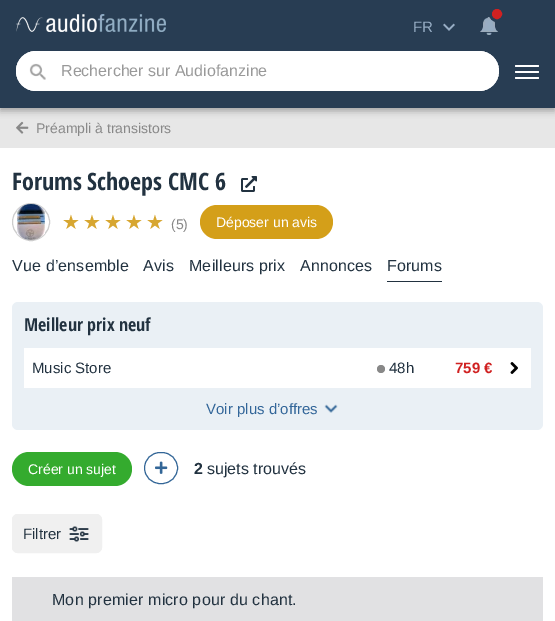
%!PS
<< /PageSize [555 621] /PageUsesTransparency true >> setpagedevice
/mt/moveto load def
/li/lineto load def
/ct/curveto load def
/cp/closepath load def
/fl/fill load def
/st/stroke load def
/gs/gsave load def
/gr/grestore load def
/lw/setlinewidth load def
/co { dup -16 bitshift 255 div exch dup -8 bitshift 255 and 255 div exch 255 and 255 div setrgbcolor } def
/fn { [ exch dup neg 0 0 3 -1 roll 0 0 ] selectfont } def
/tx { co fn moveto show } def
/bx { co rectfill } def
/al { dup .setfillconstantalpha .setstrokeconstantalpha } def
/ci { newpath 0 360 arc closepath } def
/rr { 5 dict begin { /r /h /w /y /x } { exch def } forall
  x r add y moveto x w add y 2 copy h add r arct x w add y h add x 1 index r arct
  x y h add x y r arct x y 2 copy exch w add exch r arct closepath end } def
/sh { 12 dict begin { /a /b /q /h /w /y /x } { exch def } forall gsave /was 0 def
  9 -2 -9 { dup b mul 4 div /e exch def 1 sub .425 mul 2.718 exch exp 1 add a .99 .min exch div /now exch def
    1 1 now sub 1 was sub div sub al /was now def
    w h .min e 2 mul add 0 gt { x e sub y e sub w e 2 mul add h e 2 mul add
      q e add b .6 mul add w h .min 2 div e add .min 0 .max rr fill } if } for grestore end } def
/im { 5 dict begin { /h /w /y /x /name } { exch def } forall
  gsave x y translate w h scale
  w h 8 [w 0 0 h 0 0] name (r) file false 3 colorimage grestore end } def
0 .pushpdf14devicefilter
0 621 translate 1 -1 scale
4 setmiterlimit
0 0 555 621 16#FFFFFF bx
0 108 555 40 16#E7E7E7 bx
(media/5.raw) 16 121 13 13 im
16#000000 co
0 3 555 108 0 3.5 .3 sh
0 0 555 108 16#283D53 bx
(media/1.raw) 16 14 150 18 im
(media/2.raw) 480 17 18 18 im
3 lw
497 14 6.5 ci st
16#D02121 co
497 14 4.5 ci gs fl gr
1 lw
st
(media/3.raw) 443 23 12 8 im
16#FFFFFF co
16 51 483 40 20 rr fl
36 51 mt 479 51 li 490 51 499 60 499 71 ct 499 82 490 91 479 91 ct 36 91 li 25 91 16 82 16 71 ct 16 60 25 51 36 51 ct cp 36 52 mt 479 52 li 490 52 499 61 499 71 ct 499 81 490 90 479 90 ct 36 90 li 26 90 17 81 17 71 ct 17 61 26 52 36 52 ct cp eofill
(media/4.raw) 29 63 17 17 im
515 77 24 2 1 rr fl
515 65 24 2 1 rr fl
515 71 24 2 1 rr fl
(media/6.raw) 241 176 16 16 im
16#CDCDCD co
31 222 18.5 ci st
(media/7.raw) 17 204 28 36 im
16#D49F19 co
200 205 133 34 17 rr fl
387 281 55 1 16#223240 bx
16#EAF0F5 co
12 302 531 128 6 rr fl
24 348 507 40 16#FFFFFF bx
16#888888 co
381 369 4 ci fl
(media/8.raw) 510 362 8 12 im
(media/9.raw) 324 404 14 9 im
16#34AB2E co
12 452 120 34 17 rr fl
16#336697 co
144.5 452.5 33 31 15.5 rr st
(media/10.raw) 155 461 13 13 im
16#F0F0F0 co
12 514 90 39 6 rr fl
(media/11.raw) 69 526 20 16 im
12.5 514.5 89 38 5.5 rr st
12 577 531 44 16#E1E1E3 bx
(FR) 413 32 /LiberationSans-Regular 15 16#97ADC4 tx
(Rechercher sur Audiofanzine) 61 76 /LiberationSans-Regular 16 16#999999 tx
(Préampli à transistors) 36 133 /LiberationSans-Regular 14 16#888888 tx
(Forums Schoeps CMC 6) 12 190 /OpenSansCondensed-Bold 24 16#223240 tx
/DejaVuSans-Regular 20 fn
16#D7A630 co
62 229 mt 3 0 (★★★★★) ashow
(\(5\)) 171 229 /LiberationSans-Regular 14 16#888888 tx
(Déposer un avis) 216 227 /LiberationSans-Regular 14 16#FFFFFF tx
/LiberationSans-Regular 16 fn
16#223240 co
12 271 mt .15 0 (Vue d’ensemble) ashow
143 271 mt .15 0 (Avis) ashow
189 271 mt .15 0 (Meilleurs prix) ashow
300 271 mt .15 0 (Annonces) ashow
387 271 mt .15 0 (Forums) ashow
(Meilleur prix neuf) 24 331 /OpenSansCondensed-Bold 18 16#223240 tx
(Music Store) 32 373 /LiberationSans-Regular 15 16#223240 tx
(48h) 389 373 /LiberationSans-Regular 15 16#223240 tx
(759 €) 455 373 /LiberationSans-Bold 15 16#D02121 tx
(Voir plus d’offres) 206 414 /LiberationSans-Regular 15 16#336699 tx
(Créer un sujet) 28 474 /LiberationSans-Regular 14 16#FFFFFF tx
(2) 194 474 /LiberationSans-Bold 16 16#223240 tx
(sujets trouvés) 207 474 /LiberationSans-Regular 16 16#223240 tx
(Filtrer) 23 539 /LiberationSans-Regular 15 16#223240 tx
/LiberationSans-Regular 16 fn
52 605 mt .15 0 (Mon premier micro pour du chant.) ashow
.poppdf14devicefilter showpage
